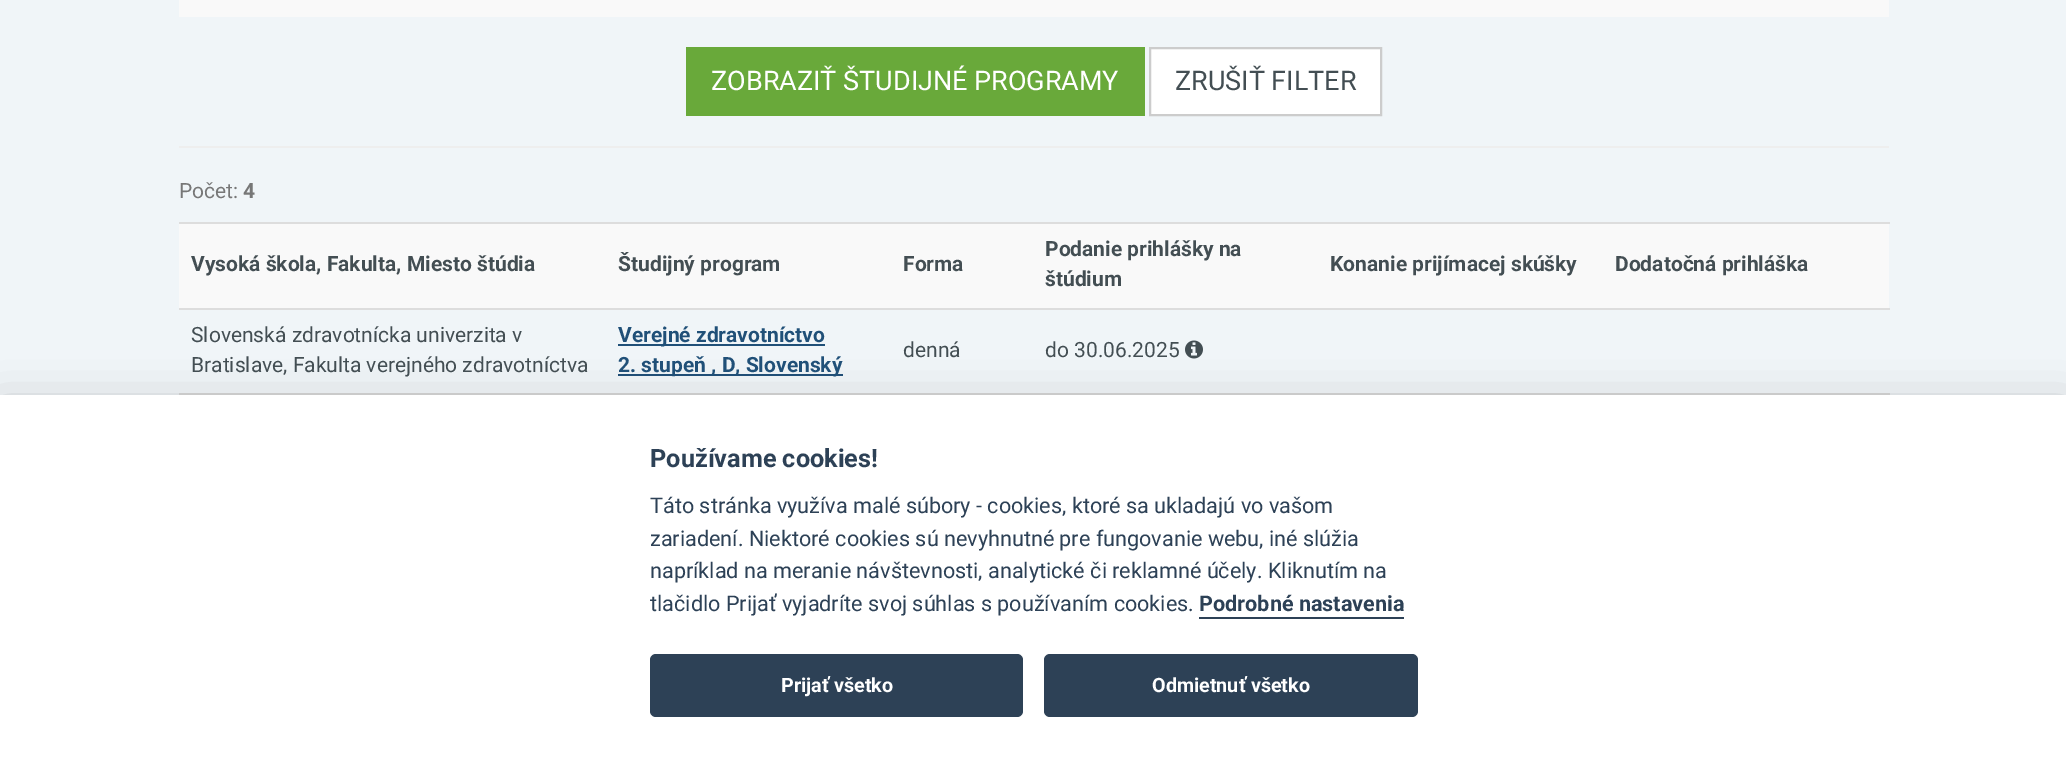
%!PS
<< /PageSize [2066 764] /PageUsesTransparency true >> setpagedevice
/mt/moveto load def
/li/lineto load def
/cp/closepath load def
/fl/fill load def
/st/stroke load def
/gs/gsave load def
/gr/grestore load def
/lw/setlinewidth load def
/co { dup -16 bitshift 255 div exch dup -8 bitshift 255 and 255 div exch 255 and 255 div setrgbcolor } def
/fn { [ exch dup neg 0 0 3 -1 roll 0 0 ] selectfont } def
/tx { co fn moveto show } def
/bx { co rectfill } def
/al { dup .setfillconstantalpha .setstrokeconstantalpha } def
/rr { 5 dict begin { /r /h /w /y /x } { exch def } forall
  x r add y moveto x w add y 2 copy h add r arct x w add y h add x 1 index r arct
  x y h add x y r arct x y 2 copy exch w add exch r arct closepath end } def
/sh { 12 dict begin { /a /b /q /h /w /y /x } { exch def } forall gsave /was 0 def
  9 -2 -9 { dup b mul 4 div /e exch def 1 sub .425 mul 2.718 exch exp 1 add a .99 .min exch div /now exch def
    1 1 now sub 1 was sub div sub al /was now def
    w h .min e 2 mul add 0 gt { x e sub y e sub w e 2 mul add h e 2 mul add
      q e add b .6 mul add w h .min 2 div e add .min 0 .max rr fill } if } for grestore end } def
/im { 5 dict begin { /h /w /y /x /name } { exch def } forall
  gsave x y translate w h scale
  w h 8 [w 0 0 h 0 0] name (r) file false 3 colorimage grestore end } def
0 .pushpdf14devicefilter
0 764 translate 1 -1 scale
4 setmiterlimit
0 0 2066 764 16#F0F5F8 bx
179 0 1710 17 16#F9F9F9 bx
686 47 459 69 16#69A93A bx
16#FFFFFF co
1150 48 mt 1381 48 li 1381 115 li 1150 115 li cp gs fl gr
16#CCCCCC co
2 lw
st
179 146 1710 2 16#EEEEEE bx
179 224 1710 84 16#F9F9F9 bx
179 222 1711 2 16#DDDDDD bx
179 308 1711 2 16#DDDDDD bx
618 344 207 2 16#205078 bx
618 374 225 2 16#205078 bx
(media/1.raw) 1185 340 18 19 im
179 393 1711 2 16#DDDDDD bx
16#020203 co
0 410 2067 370 0 22.5 .28 sh
0 395 2066 369 16#FFFFFF bx
1199 617 205 2 16#2D4156 bx
650 654 373 63 6 rr fl
1044 654 374 63 6 rr fl
(ZOBRAZIŤ ŠTUDIJNÉ PROGRAMY) 711 90 /Roboto-Regular 27 16#FFFFFF tx
(ZRUŠIŤ FILTER) 1175 90 /Roboto-Regular 27 16#434E53 tx
(Počet:) 179 198 /Roboto-Regular 21 16#777777 tx
(4) 243 198 /Roboto-Bold 21 16#777777 tx
(Vysoká škola, Fakulta, Miesto štúdia) 191 271 /Roboto-Bold 21 16#434E53 tx
(Študijný program) 618 271 /Roboto-Bold 21 16#434E53 tx
(Forma) 903 271 /Roboto-Bold 21 16#434E53 tx
(Podanie prihlášky na) 1045 256 /Roboto-Bold 21 16#434E53 tx
(štúdium) 1045 286 /Roboto-Bold 21 16#434E53 tx
(Konanie prijímacej skúšky) 1330 271 /Roboto-Bold 21 16#434E53 tx
(Dodatočná prihláška) 1615 271 /Roboto-Bold 21 16#434E53 tx
(Slovenská zdravotnícka univerzita v) 191 342 /Roboto-Regular 21 16#434E53 tx
(Bratislave, Fakulta verejného zdravotníctva) 191 372 /Roboto-Regular 21 16#434E53 tx
(Verejné zdravotníctvo) 618 342 /Roboto-Bold 21 16#205078 tx
(2. stupeň , D, Slovenský) 618 372 /Roboto-Bold 21 16#205078 tx
(denná) 903 357 /Roboto-Regular 21 16#434E53 tx
(do 30.06.2025) 1045 357 /Roboto-Regular 21 16#434E53 tx
(Používame cookies!) 650 467 /Roboto-Bold 25.25 16#2D4156 tx
(Táto stránka využíva malé súbory - cookies, ktoré sa ukladajú vo vašom) 650 513 /Roboto-Regular 21.6 16#2D4156 tx
(zariadení. Niektoré cookies sú nevyhnutné pre fungovanie webu, iné slúžia) 650 546 /Roboto-Regular 21.6 16#2D4156 tx
(napríklad na meranie návštevnosti, analytické či reklamné účely. Kliknutím na) 650 578 /Roboto-Regular 21.6 16#2D4156 tx
(tlačidlo Prijať vyjadríte svoj súhlas s používaním cookies.) 650 611 /Roboto-Regular 21.6 16#2D4156 tx
(Podrobné nastavenia) 1199 611 /Roboto-Bold 21.6 16#2D4156 tx
(Prijať všetko) 781 692 /Roboto-Bold 19.75 16#FFFFFF tx
(Odmietnuť všetko) 1152 692 /Roboto-Bold 19.75 16#FFFFFF tx
.poppdf14devicefilter showpage
